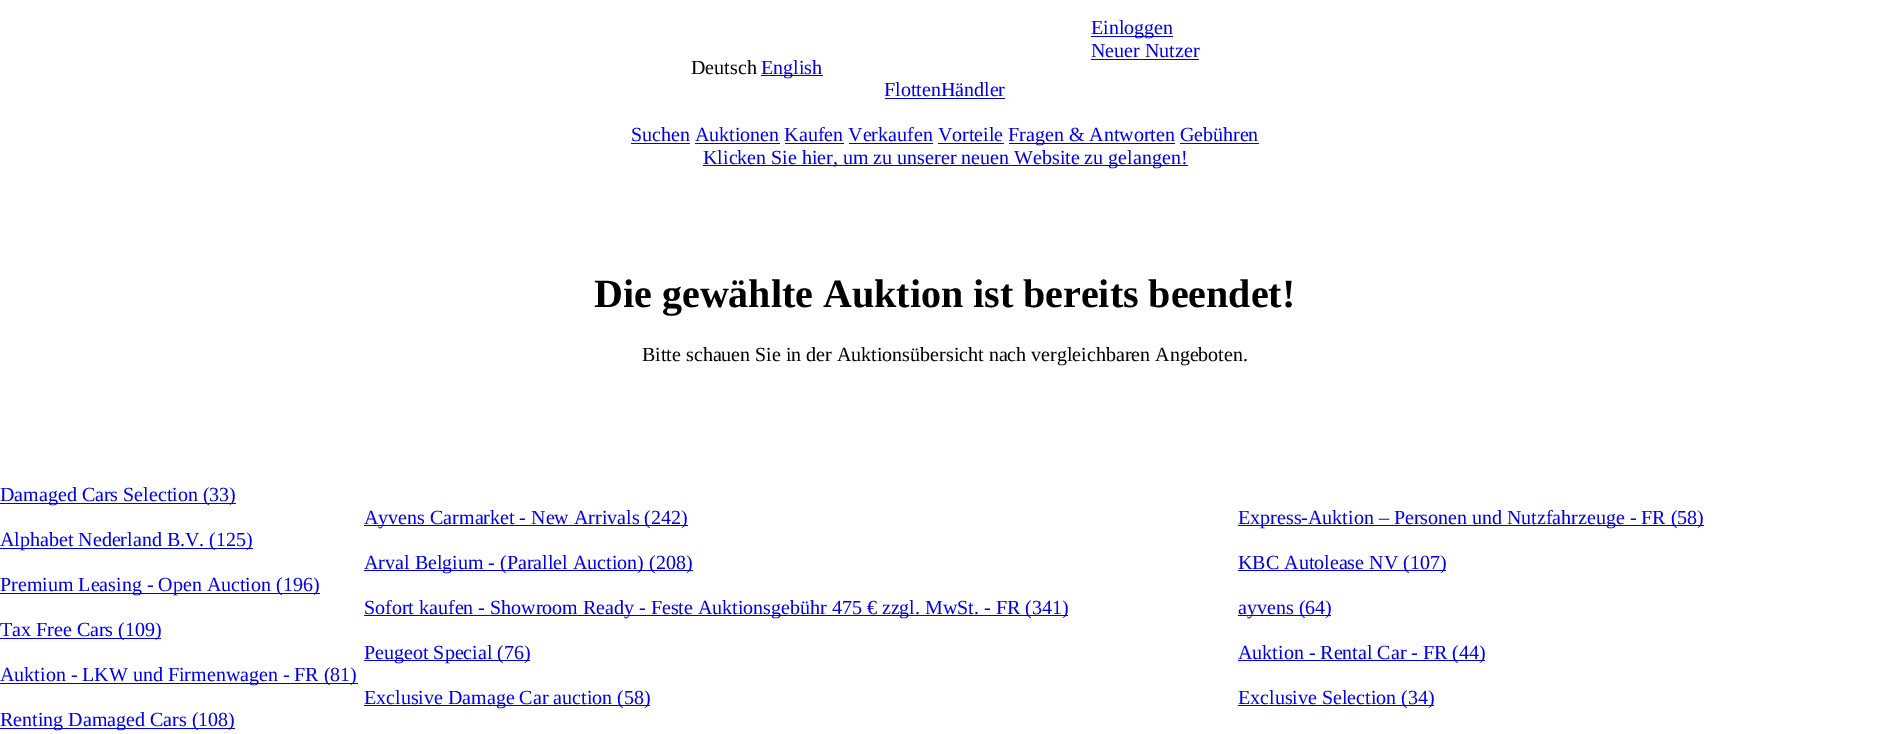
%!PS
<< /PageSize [1889 734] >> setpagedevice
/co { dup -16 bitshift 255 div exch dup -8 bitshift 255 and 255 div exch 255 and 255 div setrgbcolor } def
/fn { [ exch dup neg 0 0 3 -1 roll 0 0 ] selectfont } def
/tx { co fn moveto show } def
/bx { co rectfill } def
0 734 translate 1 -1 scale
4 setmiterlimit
0 0 1889 734 16#FFFFFF bx
1091 36 82 1 16#0000EE bx
1091 59 108 1 16#0000EE bx
761 75 62 1 16#0000EE bx
885 98 120 1 16#0000EE bx
631 143 59 1 16#0000EE bx
1009 143 166 1 16#0000EE bx
695 143 85 1 16#0000EE bx
785 143 59 1 16#0000EE bx
849 143 84 1 16#0000EE bx
938 143 66 1 16#0000EE bx
1180 143 79 1 16#0000EE bx
703 165 485 1 16#0000EE bx
0 503 236 1 16#0000EE bx
0 548 253 1 16#0000EE bx
0 593 320 1 16#0000EE bx
0 638 161 1 16#0000EE bx
0 683 358 1 16#0000EE bx
0 728 235 1 16#0000EE bx
364 525 324 1 16#0000EE bx
364 570 329 1 16#0000EE bx
364 615 704 1 16#0000EE bx
364 660 166 1 16#0000EE bx
364 705 286 1 16#0000EE bx
1238 525 466 1 16#0000EE bx
1238 570 208 1 16#0000EE bx
1238 615 93 1 16#0000EE bx
1238 660 247 1 16#0000EE bx
1238 705 196 1 16#0000EE bx
(Einloggen) 1091 34 /LiberationSerif-Regular 20 16#0000EE tx
(Neuer Nutzer) 1091 57 /LiberationSerif-Regular 20 16#0000EE tx
(Deutsch) 691 74 /LiberationSerif-Regular 20 16#000000 tx
(English) 761 74 /LiberationSerif-Regular 20 16#0000EE tx
(FlottenHändler) 884 96 /LiberationSerif-Regular 20 16#0000EE tx
(Suchen Auktionen Kaufen Verkaufen Vorteile) 631 141 /LiberationSerif-Regular 20 16#0000EE tx
(Fragen & Antworten Gebühren) 1008 141 /LiberationSerif-Regular 20 16#0000EE tx
(Klicken Sie hier, um zu unserer neuen Website zu gelangen!) 703 164 /LiberationSerif-Regular 20 16#0000EE tx
(Die gewählte Auktion ist bereits beendet!) 594 307 /LiberationSerif-Bold 40 16#000000 tx
(Bitte schauen Sie in der Auktionsübersicht nach vergleichbaren Angeboten.) 642 361 /LiberationSerif-Regular 20 16#000000 tx
(Damaged Cars Selection \(33\)) 0 501 /LiberationSerif-Regular 20 16#0000EE tx
(Alphabet Nederland B.V. \(125\)) 0 546 /LiberationSerif-Regular 20 16#0000EE tx
(Premium Leasing - Open Auction \(196\)) 0 591 /LiberationSerif-Regular 20 16#0000EE tx
(Tax Free Cars \(109\)) 0 636 /LiberationSerif-Regular 20 16#0000EE tx
(Auktion - LKW und Firmenwagen - FR \(81\)) 0 681 /LiberationSerif-Regular 20 16#0000EE tx
(Renting Damaged Cars \(108\)) 0 726 /LiberationSerif-Regular 20 16#0000EE tx
(Ayvens Carmarket - New Arrivals \(242\)) 364 524 /LiberationSerif-Regular 20 16#0000EE tx
(Arval Belgium - \(Parallel Auction\) \(208\)) 364 569 /LiberationSerif-Regular 20 16#0000EE tx
(Sofort kaufen - Showroom Ready - Feste Auktionsgebühr 475 € zzgl. MwSt. - FR \(341\)) 364 614 /LiberationSerif-Regular 20 16#0000EE tx
(Peugeot Special \(76\)) 364 659 /LiberationSerif-Regular 20 16#0000EE tx
(Exclusive Damage Car auction \(58\)) 364 704 /LiberationSerif-Regular 20 16#0000EE tx
(Express-Auktion – Personen und Nutzfahrzeuge - FR \(58\)) 1238 524 /LiberationSerif-Regular 20 16#0000EE tx
(KBC Autolease NV \(107\)) 1238 569 /LiberationSerif-Regular 20 16#0000EE tx
(ayvens \(64\)) 1238 614 /LiberationSerif-Regular 20 16#0000EE tx
(Auktion - Rental Car - FR \(44\)) 1238 659 /LiberationSerif-Regular 20 16#0000EE tx
(Exclusive Selection \(34\)) 1238 704 /LiberationSerif-Regular 20 16#0000EE tx
showpage
